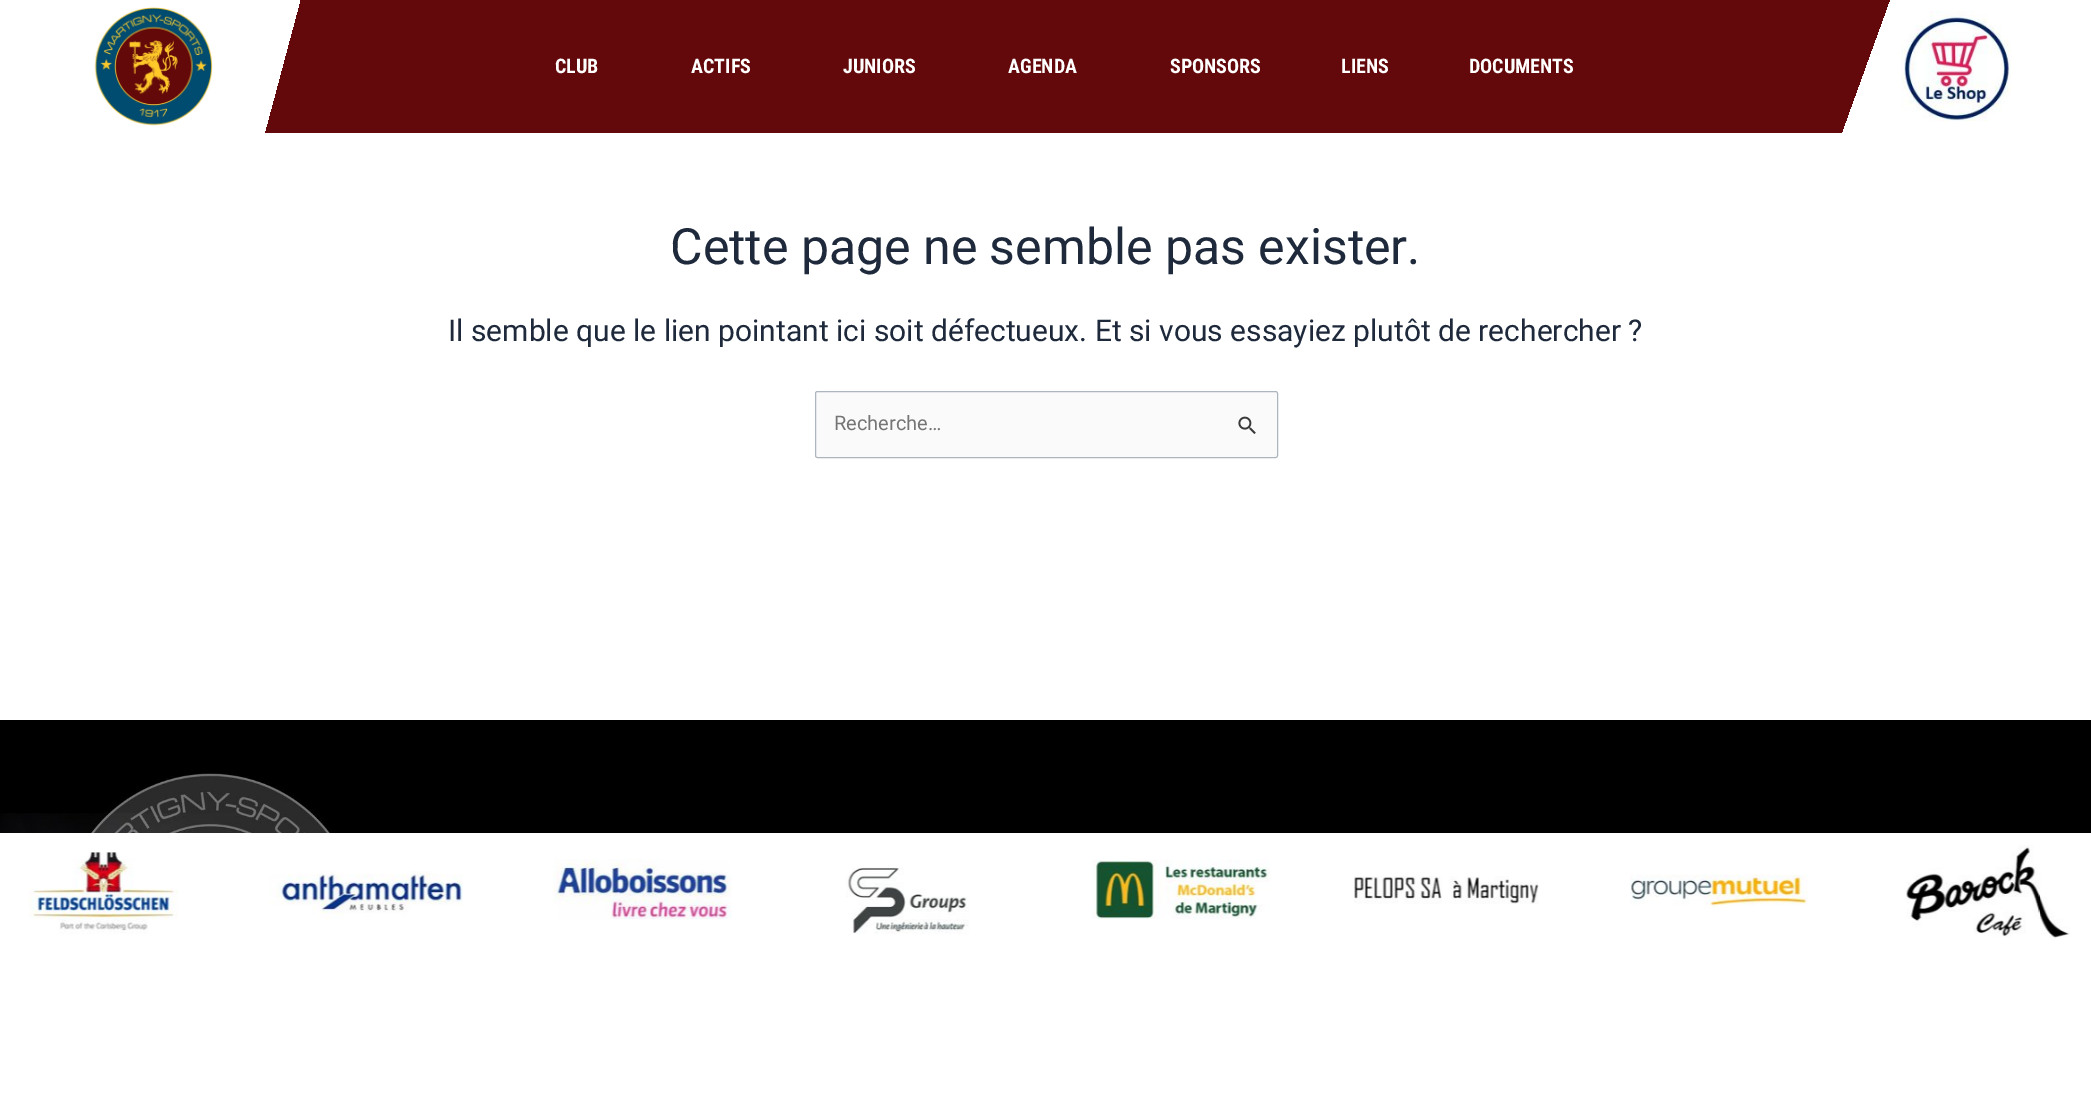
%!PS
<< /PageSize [2091 1104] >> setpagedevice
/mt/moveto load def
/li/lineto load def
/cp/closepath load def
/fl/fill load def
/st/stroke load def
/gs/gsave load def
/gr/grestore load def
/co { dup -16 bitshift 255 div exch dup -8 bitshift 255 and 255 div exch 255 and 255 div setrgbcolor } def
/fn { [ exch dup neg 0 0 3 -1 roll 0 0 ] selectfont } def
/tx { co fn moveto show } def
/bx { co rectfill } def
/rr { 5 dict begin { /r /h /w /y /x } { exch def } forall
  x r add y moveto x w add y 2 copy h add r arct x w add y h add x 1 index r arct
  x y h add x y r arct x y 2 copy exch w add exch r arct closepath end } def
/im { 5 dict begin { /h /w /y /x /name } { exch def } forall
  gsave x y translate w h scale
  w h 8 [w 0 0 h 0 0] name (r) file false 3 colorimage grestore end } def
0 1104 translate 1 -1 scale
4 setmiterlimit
0 0 2091 1104 16#FFFFFF bx
345 0 1439 133 16#64090B bx
gs 265 0 mt 345 0 li 345 133 li 265 133 li cp clip newpath
<< /ShadingType 2 /ColorSpace /DeviceRGB /Coords [-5 19 350 114] /Extend [true true] /Function << /FunctionType 3 /Domain [0 1] /Functions [<< /FunctionType 2 /Domain [0 1] /C0 [1 1 1] /C1 [1 1 1] /N 1 >> << /FunctionType 2 /Domain [0 1] /C0 [.392 .035 .043] /C1 [.392 .035 .043] /N 1 >>] /Bounds [.79] /Encode [0 1 0 1] >> >> shfill gr
(media/1.raw) 94 7 119 119 im
gs 1784 0 mt 1890 0 li 1890 133 li 1784 133 li cp clip newpath
<< /ShadingType 2 /ColorSpace /DeviceRGB /Coords [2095 123 1780 9] /Extend [true true] /Function << /FunctionType 3 /Domain [0 1] /Functions [<< /FunctionType 2 /Domain [0 1] /C0 [1 1 1] /C1 [1 1 1] /N 1 >> << /FunctionType 2 /Domain [0 1] /C0 [.392 .035 .043] /C1 [.392 .035 .043] /N 1 >>] /Bounds [.7] /Encode [0 1 0 1] >> >> shfill gr
(media/2.raw) 1901 11 110 111 im
16#FAFAFA co
815.5 391.5 462 66 2 rr gs fl gr
16#ADB6BE co
st
(media/3.raw) 1238 416 18 18 im
0 720 2091 113 16#000000 bx
(media/4.raw) 0 773 470 60 im
(media/5.raw) 29 852 149 82 im
(media/6.raw) 269 871 194 48 im
(media/7.raw) 553 859 179 61 im
(media/8.raw) 846 867 123 67 im
(media/9.raw) 1091 859 179 60 im
(media/10.raw) 1354 876 185 28 im
(media/11.raw) 1630 874 178 35 im
(media/12.raw) 1906 845 164 93 im
(CLUB) 555 73 /RobotoCondensed-Bold 20 16#FFFFFF tx
(ACTIFS) 691 73 /RobotoCondensed-Bold 20 16#FFFFFF tx
(JUNIORS) 843 73 /RobotoCondensed-Bold 20 16#FFFFFF tx
(AGENDA) 1008 73 /RobotoCondensed-Bold 20 16#FFFFFF tx
(SPONSORS) 1170 73 /RobotoCondensed-Bold 20 16#FFFFFF tx
(LIENS) 1341 73 /RobotoCondensed-Bold 20 16#FFFFFF tx
(DOCUMENTS) 1469 73 /RobotoCondensed-Bold 20 16#FFFFFF tx
(Cette page ne semble pas exister.) 670 264 /Roboto-Regular 50 16#1E293B tx
(Il semble que le lien pointant ici soit défectueux. Et si vous essayiez plutôt de rechercher ?) 448 341 /Roboto-Regular 30 16#1E293B tx
(Recherche…) 834 430 /Roboto-Regular 20 16#757575 tx
showpage
